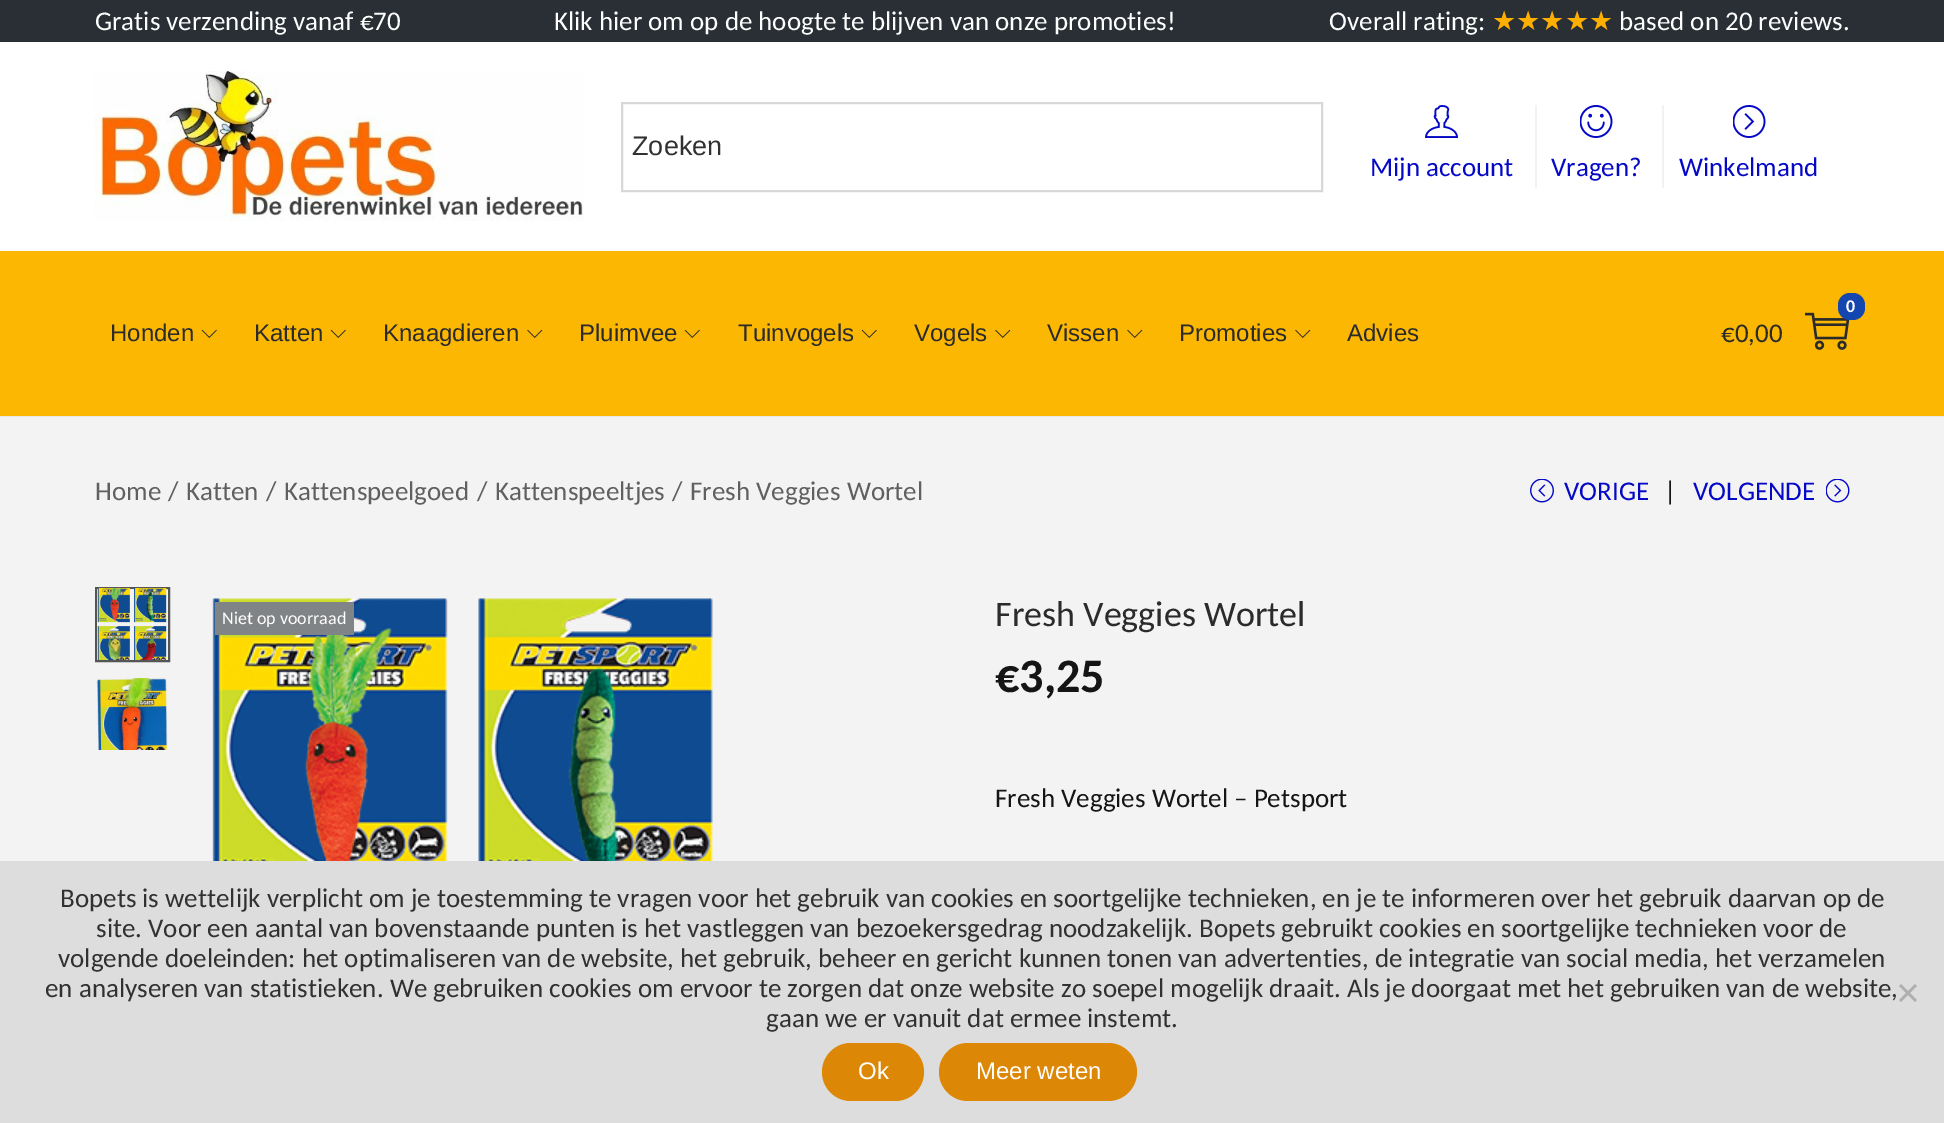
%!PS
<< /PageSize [1944 1123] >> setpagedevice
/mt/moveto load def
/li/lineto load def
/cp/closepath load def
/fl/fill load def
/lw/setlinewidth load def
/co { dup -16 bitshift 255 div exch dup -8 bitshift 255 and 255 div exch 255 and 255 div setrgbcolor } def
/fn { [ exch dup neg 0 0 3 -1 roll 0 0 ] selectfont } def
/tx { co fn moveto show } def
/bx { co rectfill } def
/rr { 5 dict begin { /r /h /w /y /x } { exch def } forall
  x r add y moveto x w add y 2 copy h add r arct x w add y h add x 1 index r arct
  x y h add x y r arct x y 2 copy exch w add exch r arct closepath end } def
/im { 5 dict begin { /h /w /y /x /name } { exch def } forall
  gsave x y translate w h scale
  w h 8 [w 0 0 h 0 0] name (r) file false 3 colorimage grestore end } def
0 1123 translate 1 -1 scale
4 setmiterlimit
0 0 1944 1123 16#FFFFFF bx
0 0 1944 42 16#292F34 bx
0 416 1944 1 16#EAEAEA bx
(media/1.raw) 94 71 490 150 im
16#D8D8D8 co
2 lw
622 103 700 88 rectstroke
(media/2.raw) 1425 105 33 33 im
1535 105 2 83 16#F2F2F2 bx
(media/3.raw) 1580 105 33 33 im
1662 105 2 83 16#F2F2F2 bx
(media/4.raw) 1733 105 33 33 im
0 251 1944 165 16#FCB702 bx
(media/5.raw) 201 329 16 9 im
(media/5.raw) 330 329 16 9 im
(media/6.raw) 527 329 16 9 im
(media/5.raw) 684 329 16 9 im
(media/5.raw) 861 329 16 9 im
(media/6.raw) 995 329 16 9 im
(media/6.raw) 1127 329 16 9 im
(media/6.raw) 1295 329 16 9 im
(media/7.raw) 1805 312 45 38 im
16#1346AF co
1838 293 27 27 12 rr fl
0 417 1944 444 16#F3F3F3 bx
(media/8.raw) 1530 479 24 24 im
(media/9.raw) 1826 479 24 24 im
16#555555 co
96 588 73 73 rectstroke
(media/10.raw) 97 588 70 72 im
(media/11.raw) 96 678 72 72 im
(media/12.raw) 212 598 501 263 im
215 602 139 33 16#818486 bx
0 861 1944 262 16#DDDDDD bx
16#AFAFAF co
1915 984 mt 1917 986 li 1901 1002 li 1899 1000 li cp fl
1899 986 mt 1901 984 li 1917 1000 li 1915 1002 li cp fl
16#DD8706 co
822 1043 102 58 29 rr fl
939 1043 198 58 29 rr fl
(Gratis verzending vanaf €70) 95 30 /Carlito-Regular 27 16#FFFFFF tx
(Klik hier om op de hoogte te blijven van onze promoties!) 554 30 /Carlito-Regular 27 16#FFFFFF tx
(Overall rating:) 1329 30 /Carlito-Regular 27 16#FFFFFF tx
(★★★★★) 1492 30 /DejaVuSans-Regular 27 16#FFAF00 tx
(based on 20 reviews.) 1619 30 /Carlito-Regular 27 16#FFFFFF tx
(Zoeken) 632 155 /LiberationSans-Regular 27 16#313131 tx
(Mijn account) 1370 176 /Carlito-Regular 27 16#0509C6 tx
(Vragen?) 1551 176 /Carlito-Regular 27 16#0509C6 tx
(Winkelmand) 1679 176 /Carlito-Regular 27 16#0509C6 tx
(Honden) 110 341 /LiberationSans-Regular 24 16#2B2B2B tx
(Katten) 254 341 /LiberationSans-Regular 24 16#2B2B2B tx
(Knaagdieren) 383 341 /LiberationSans-Regular 24 16#2B2B2B tx
(Pluimvee) 579 341 /LiberationSans-Regular 24 16#2B2B2B tx
(Tuinvogels) 738 341 /LiberationSans-Regular 24 16#2B2B2B tx
(Vogels) 914 341 /LiberationSans-Regular 24 16#2B2B2B tx
(Vissen) 1047 341 /LiberationSans-Regular 24 16#2B2B2B tx
(Promoties) 1179 341 /LiberationSans-Regular 24 16#2B2B2B tx
(Advies) 1347 341 /LiberationSans-Regular 24 16#2B2B2B tx
(0) 1846 312 /Carlito-Bold 18 16#FFFFFF tx
(€0,00) 1721 342 /Carlito-Regular 27 16#2B2B2B tx
(Home) 95 500 /Carlito-Regular 27 16#606060 tx
(/) 168 500 /Carlito-Regular 27 16#606060 tx
(Katten) 186 500 /Carlito-Regular 27 16#606060 tx
(/) 266 500 /Carlito-Regular 27 16#606060 tx
(Kattenspeelgoed) 284 500 /Carlito-Regular 27 16#606060 tx
(/) 477 500 /Carlito-Regular 27 16#606060 tx
(Kattenspeeltjes) 495 500 /Carlito-Regular 27 16#606060 tx
(/) 672 500 /Carlito-Regular 27 16#606060 tx
(Fresh Veggies Wortel) 690 500 /Carlito-Regular 27 16#606060 tx
(VORIGE) 1564 500 /Carlito-Regular 27 16#0509C6 tx
(|) 1664 500 /Carlito-Regular 27 16#151515 tx
(VOLGENDE) 1693 500 /Carlito-Regular 27 16#0509C6 tx
(Niet op voorraad) 222 624 /Carlito-Regular 18 16#FFFFFF tx
(Fresh Veggies Wortel) 995 626 /Carlito-Regular 36 16#2B2B2B tx
(€3,25) 995 692 /Carlito-Bold 48 16#151515 tx
(Fresh Veggies Wortel – Petsport) 995 807 /Carlito-Regular 27 16#151515 tx
(Bopets is wettelijk verplicht om je toestemming te vragen voor het gebruik van cookies en soortgelijke technieken, en je te informeren over het gebruik daarvan op de) 60 907 /Carlito-Regular 27 16#313131 tx
(site. Voor een aantal van bovenstaande punten is het vastleggen van bezoekersgedrag noodzakelijk. Bopets gebruikt cookies en soortgelijke technieken voor de) 96 937 /Carlito-Regular 27 16#313131 tx
(volgende doeleinden: het optimaliseren van de website, het gebruik, beheer en gericht kunnen tonen van advertenties, de integratie van social media, het verzamelen) 58 967 /Carlito-Regular 27 16#313131 tx
(en analyseren van statistieken. We gebruiken cookies om ervoor te zorgen dat onze website zo soepel mogelijk draait. Als je doorgaat met het gebruiken van de website,) 45 997 /Carlito-Regular 27 16#313131 tx
(gaan we er vanuit dat ermee instemt.) 766 1027 /Carlito-Regular 27 16#313131 tx
(Ok) 858 1079 /LiberationSans-Regular 24 16#FFFFFF tx
(Meer weten) 976 1079 /LiberationSans-Regular 24 16#FFFFFF tx
showpage
